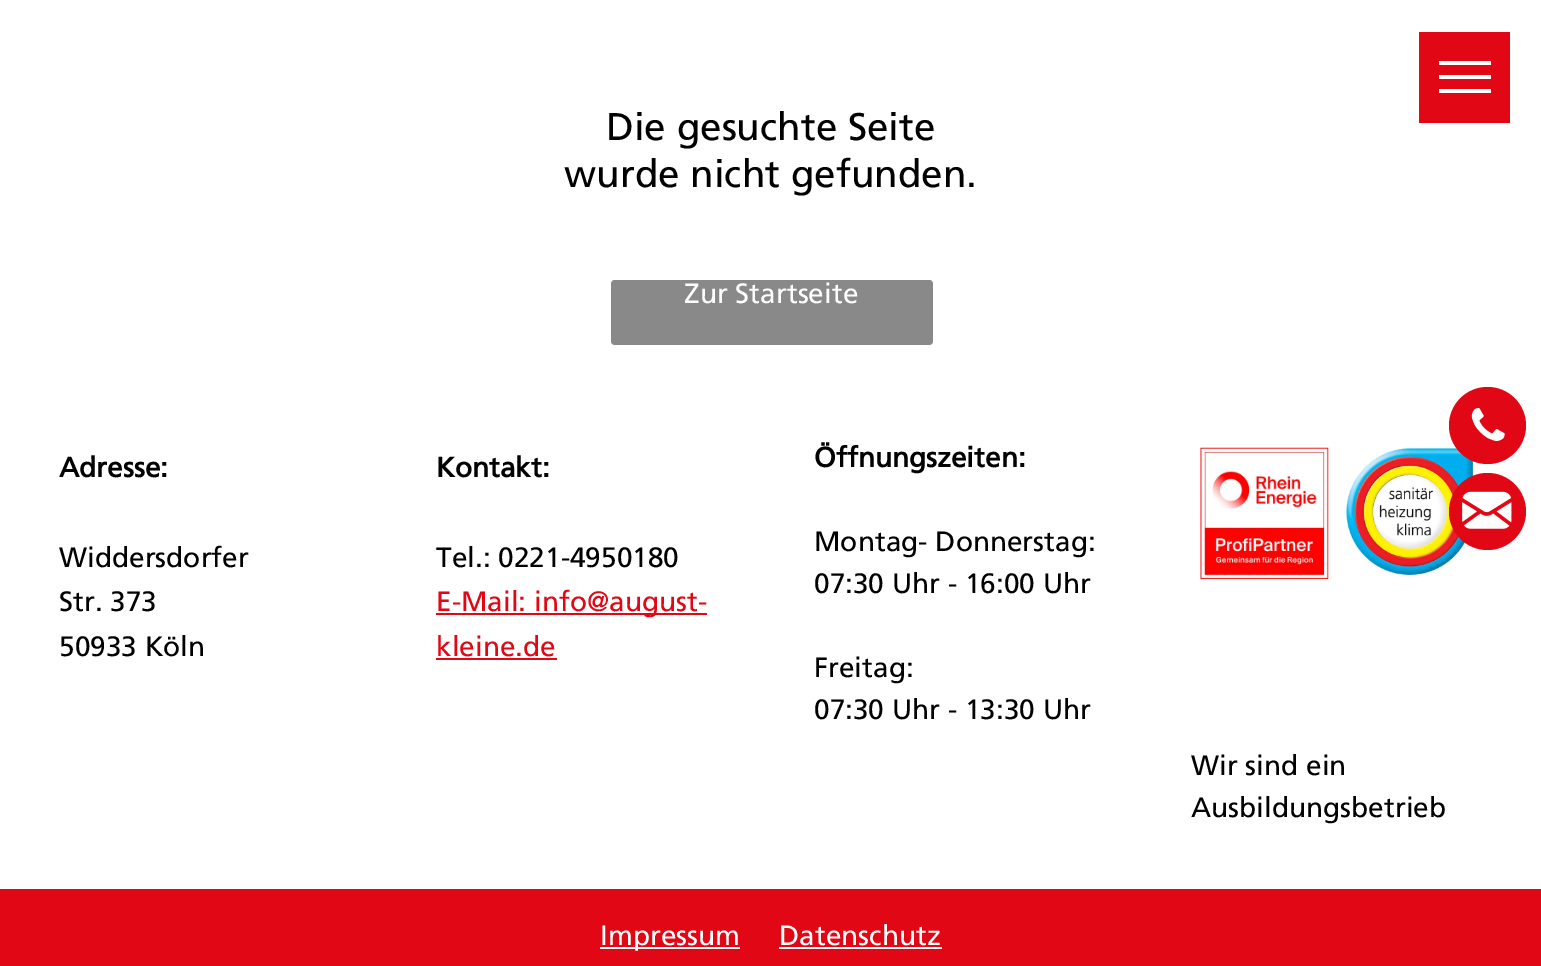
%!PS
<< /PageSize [1541 966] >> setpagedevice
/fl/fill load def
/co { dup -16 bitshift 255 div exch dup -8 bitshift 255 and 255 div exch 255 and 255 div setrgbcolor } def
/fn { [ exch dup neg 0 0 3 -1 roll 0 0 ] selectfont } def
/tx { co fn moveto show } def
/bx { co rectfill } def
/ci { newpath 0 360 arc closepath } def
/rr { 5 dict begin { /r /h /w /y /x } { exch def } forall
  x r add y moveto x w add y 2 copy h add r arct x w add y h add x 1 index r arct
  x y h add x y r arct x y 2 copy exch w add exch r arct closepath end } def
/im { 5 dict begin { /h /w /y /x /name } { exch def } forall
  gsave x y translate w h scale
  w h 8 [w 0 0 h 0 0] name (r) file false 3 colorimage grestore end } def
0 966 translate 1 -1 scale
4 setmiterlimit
0 0 1541 966 16#FFFFFF bx
1419 32 91 91 16#E10714 bx
1439 61 52 4 16#FFFFFF bx
1439 75 52 4 16#FFFFFF bx
1439 89 52 4 16#FFFFFF bx
16#898989 co
611 280 322 65 4 rr fl
436 613 271 2 16#E10714 bx
436 658 121 2 16#E10714 bx
(media/1.raw) 1200 447 129 132 im
(media/2.raw) 1346 447 128 129 im
1487.5 425.5 38.5 ci fl
(media/3.raw) 1471 408 34 33 im
1487.5 511.5 38.5 ci fl
(media/4.raw) 1462 491 50 38 im
0 889 1541 77 16#E10714 bx
600 947 140 2 16#FFFFFF bx
779 947 163 2 16#FFFFFF bx
(Die gesuchte Seite) 606 140 /Frutiger-Regular 38.5 16#000000 tx
(wurde nicht gefunden.) 564 187 /Frutiger-Regular 38.5 16#000000 tx
(Zur Startseite) 684 303 /Frutiger-Regular 28 16#FFFFFF tx
(Adresse:) 59 477 /Frutiger-Bold 28 16#000000 tx
(Widdersdorfer) 59 567 /Frutiger-Regular 28 16#000000 tx
(Str. 373) 59 611 /Frutiger-Regular 28 16#000000 tx
(50933 Köln) 59 656 /Frutiger-Regular 28 16#000000 tx
(Kontakt:) 436 477 /Frutiger-Bold 28 16#000000 tx
(Tel.: 0221-4950180) 436 567 /Frutiger-Regular 28 16#000000 tx
(E-Mail: info@august-) 436 611 /Frutiger-Regular 28 16#E10714 tx
(kleine.de) 436 656 /Frutiger-Regular 28 16#E10714 tx
(Öffnungszeiten:) 814 467 /Frutiger-Bold 28 16#000000 tx
(Montag- Donnerstag:) 814 551 /Frutiger-Regular 28 16#000000 tx
(07:30 Uhr - 16:00 Uhr) 814 593 /Frutiger-Regular 28 16#000000 tx
(Freitag:) 814 677 /Frutiger-Regular 28 16#000000 tx
(07:30 Uhr - 13:30 Uhr) 814 719 /Frutiger-Regular 28 16#000000 tx
(Wir sind ein) 1191 775 /Frutiger-Regular 28 16#000000 tx
(Ausbildungsbetrieb) 1191 817 /Frutiger-Regular 28 16#000000 tx
(Impressum) 600 945 /Frutiger-Regular 28 16#FFFFFF tx
(Datenschutz) 779 945 /Frutiger-Regular 28 16#FFFFFF tx
showpage
